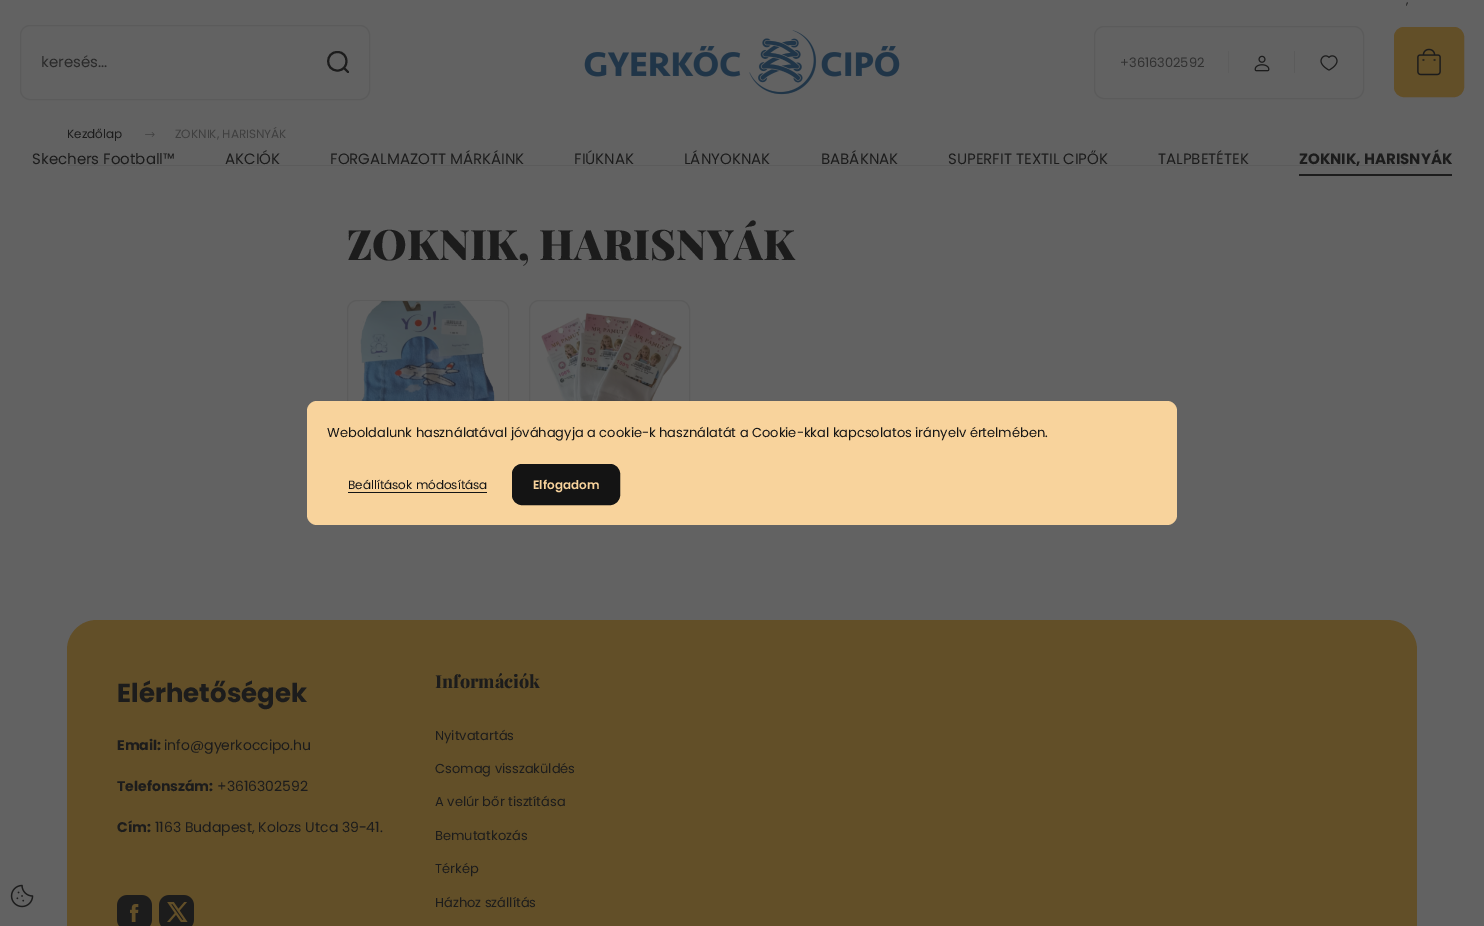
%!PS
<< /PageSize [1484 926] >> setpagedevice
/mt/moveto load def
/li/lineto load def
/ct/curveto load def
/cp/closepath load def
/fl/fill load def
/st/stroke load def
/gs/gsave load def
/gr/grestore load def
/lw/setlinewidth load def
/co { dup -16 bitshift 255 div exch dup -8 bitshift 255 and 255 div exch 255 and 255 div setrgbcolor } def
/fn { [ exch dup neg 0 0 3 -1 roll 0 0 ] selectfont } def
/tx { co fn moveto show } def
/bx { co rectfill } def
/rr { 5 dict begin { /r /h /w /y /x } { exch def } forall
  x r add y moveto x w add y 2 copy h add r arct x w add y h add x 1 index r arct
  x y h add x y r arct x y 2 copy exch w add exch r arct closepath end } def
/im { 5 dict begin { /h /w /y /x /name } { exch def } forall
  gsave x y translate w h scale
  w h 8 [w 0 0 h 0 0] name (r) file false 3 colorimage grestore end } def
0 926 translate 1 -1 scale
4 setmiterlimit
0 0 1484 926 16#626262 bx
16#5B5B5B co
20.5 25.5 349 74 9.5 rr st
16#1C1C1C co
2 lw
1 setlinecap
1 setlinejoin
348 72 mt 344 68 li 337.5 70.5 mt 325 70.5 325 52 337.5 52 ct 349.5 52 349.5 70.5 337.5 70.5 ct cp st
(media/1.raw) 584 30 316 65 im
16#5B5B5B co
1 lw
0 setlinecap
0 setlinejoin
1094.5 26.5 269 72 9.5 rr st
1228 51 1 22 16#5D5D5D bx
(media/2.raw) 1254 55 16 17 im
1294 51 1 22 16#5B5B5B bx
(media/3.raw) 1320 55 18 16 im
16#624F28 co
1394.5 27.5 69 69 9.5 rr gs fl gr
st
(media/4.raw) 1417 48 24 28 im
1299 174 153 2 16#1C1C1C bx
67 165 1350 1 16#5B5B5B bx
(media/5.raw) 145 132 10 5 im
347.5 300.5 161 199 9.5 rr st
(media/6.raw) 360 301 135 100 im
529.5 300.5 160 199 9.5 rr st
(media/7.raw) 541 313 141 88 im
16#624F28 co
67 620 1350 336 30 rr fl
(media/8.raw) 117 895 35 31 im
(media/9.raw) 159 895 35 31 im
16#F8D39C co
307 401 870 124 10 rr fl
348 492 139 1 16#141414 bx
512.5 464.5 107 40 9.5 rr gs fl gr
st
(media/10.raw) 10 884 24 24 im
(,) 1406 4 /Poppins-Regular 12 16#1C1C1C tx
(keresés...) 41 67 /Poppins-Regular 15 16#2A2A2A tx
(+3616302592) 1120 67 /Poppins-Regular 13 16#313131 tx
(Skechers Football™) 32 164 /Poppins-Regular 15 16#1C1C1C tx
(AKCIÓK) 225 164 /Poppins-Regular 15 16#1C1C1C tx
(FORGALMAZOTT MÁRKÁINK) 330 164 /Poppins-Regular 15 16#1C1C1C tx
(FIÚKNAK) 574 164 /Poppins-Regular 15 16#1C1C1C tx
(LÁNYOKNAK) 684 164 /Poppins-Regular 15 16#1C1C1C tx
(BABÁKNAK) 821 164 /Poppins-Regular 15 16#1C1C1C tx
(SUPERFIT TEXTIL CIPŐK) 948 164 /Poppins-Regular 15 16#1C1C1C tx
(TALPBETÉTEK) 1158 164 /Poppins-Regular 15 16#1C1C1C tx
(ZOKNIK, HARISNYÁK) 1299 164 /Poppins-Bold 15 16#1C1C1C tx
(Kezdőlap) 67 138 /Poppins-Regular 12 16#1C1C1C tx
(ZOKNIK, HARISNYÁK) 175 138 /Poppins-Regular 12 16#3F3F3F tx
(ZOKNIK, HARISNYÁK) 347 260 /PlayfairDisplay-Black 42 16#1C1C1C tx
(Elérhetőségek) 117 702 /Poppins-Bold 26 16#1C1C1C tx
(Email:) 117 750 /Poppins-Bold 14 16#1C1C1C tx
(info@gyerkoccipo.hu) 164 750 /Poppins-Regular 14 16#1C1C1C tx
(Telefonszám:) 117 791 /Poppins-Bold 14 16#1C1C1C tx
(+3616302592) 217 791 /Poppins-Regular 14 16#1C1C1C tx
(Cím:) 117 832 /Poppins-Bold 14 16#1C1C1C tx
(1163 Budapest, Kolozs Utca 39-41.) 155 832 /Poppins-Regular 14 16#1C1C1C tx
(Információk) 435 688 /PlayfairDisplay-ExtraBold 18 16#1C1C1C tx
(Nyitvatartás) 435 740 /Poppins-Regular 13 16#1C1C1C tx
(Csomag visszaküldés) 435 773 /Poppins-Regular 13 16#1C1C1C tx
(A velúr bőr tisztítása) 435 806 /Poppins-Regular 13 16#1C1C1C tx
(Bemutatkozás) 435 840 /Poppins-Regular 13 16#1C1C1C tx
(Térkép) 435 873 /Poppins-Regular 13 16#1C1C1C tx
(Házhoz szállítás) 435 907 /Poppins-Regular 13 16#1C1C1C tx
(Weboldalunk használatával jóváhagyja a cookie-k használatát a Cookie-kkal kapcsolatos irányelv értelmében.) 327 437 /Poppins-Regular 13 16#141414 tx
(Beállítások módosítása) 348 489 /Poppins-Regular 12 16#141414 tx
(Elfogadom) 533 489 /Poppins-SemiBold 12 16#F8D39C tx
showpage
